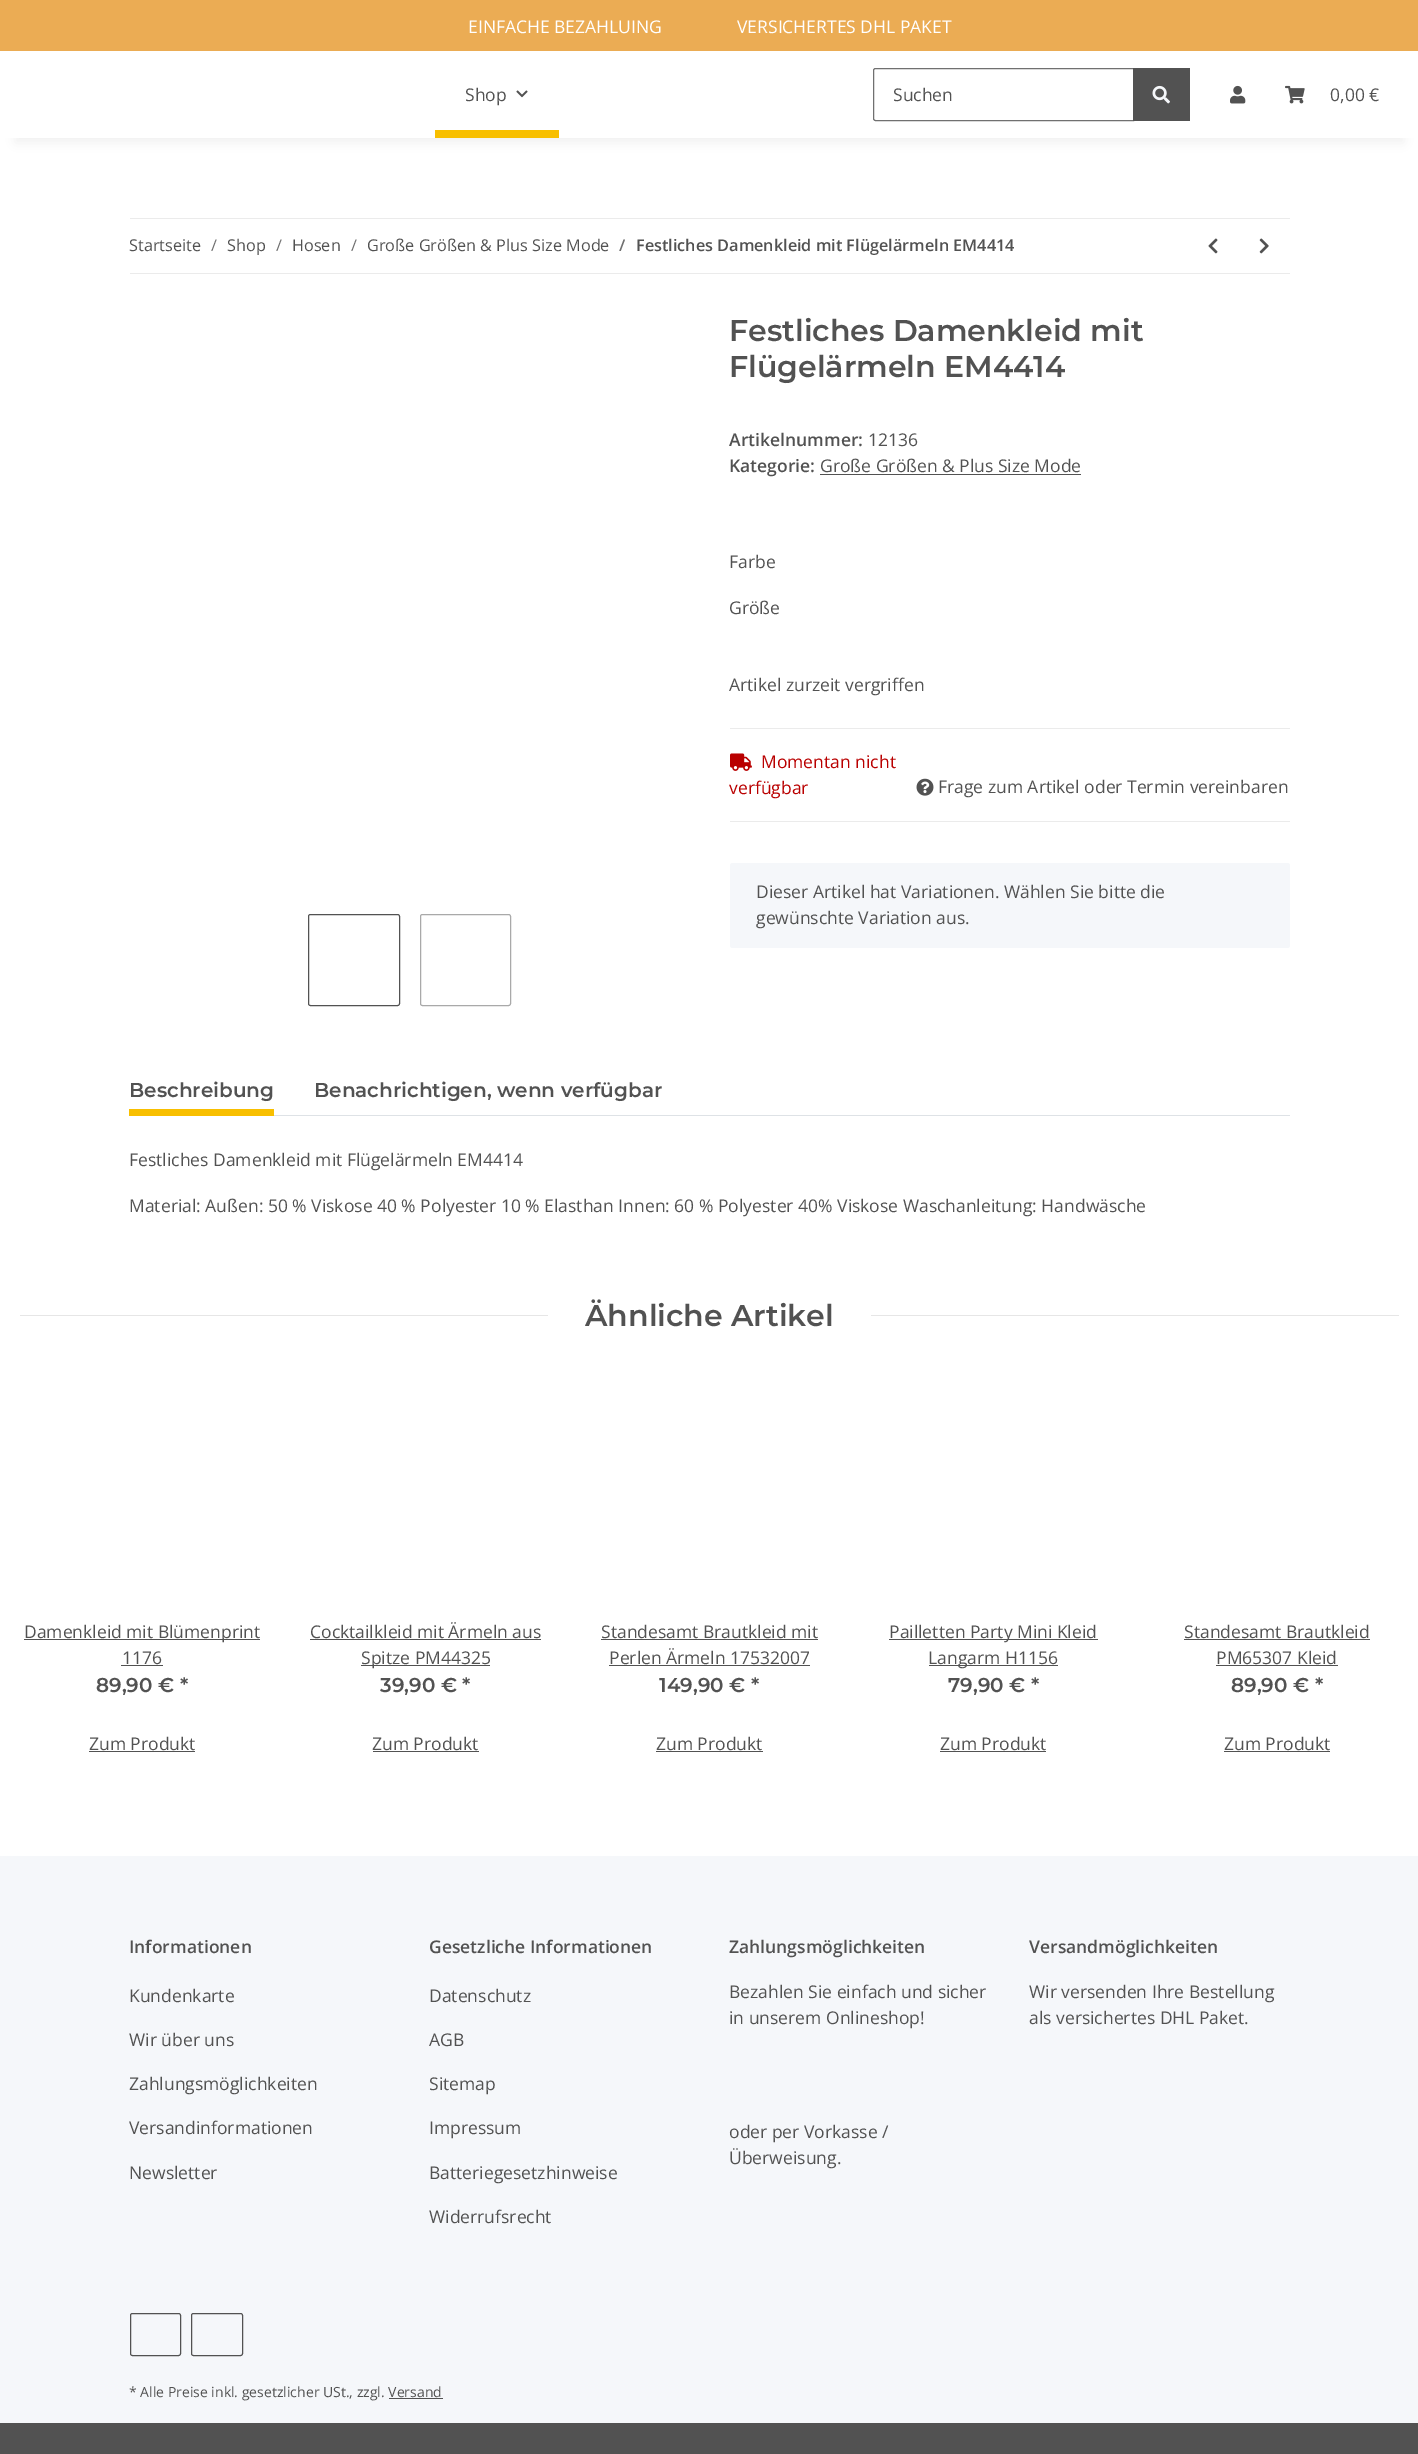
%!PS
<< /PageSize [1418 2454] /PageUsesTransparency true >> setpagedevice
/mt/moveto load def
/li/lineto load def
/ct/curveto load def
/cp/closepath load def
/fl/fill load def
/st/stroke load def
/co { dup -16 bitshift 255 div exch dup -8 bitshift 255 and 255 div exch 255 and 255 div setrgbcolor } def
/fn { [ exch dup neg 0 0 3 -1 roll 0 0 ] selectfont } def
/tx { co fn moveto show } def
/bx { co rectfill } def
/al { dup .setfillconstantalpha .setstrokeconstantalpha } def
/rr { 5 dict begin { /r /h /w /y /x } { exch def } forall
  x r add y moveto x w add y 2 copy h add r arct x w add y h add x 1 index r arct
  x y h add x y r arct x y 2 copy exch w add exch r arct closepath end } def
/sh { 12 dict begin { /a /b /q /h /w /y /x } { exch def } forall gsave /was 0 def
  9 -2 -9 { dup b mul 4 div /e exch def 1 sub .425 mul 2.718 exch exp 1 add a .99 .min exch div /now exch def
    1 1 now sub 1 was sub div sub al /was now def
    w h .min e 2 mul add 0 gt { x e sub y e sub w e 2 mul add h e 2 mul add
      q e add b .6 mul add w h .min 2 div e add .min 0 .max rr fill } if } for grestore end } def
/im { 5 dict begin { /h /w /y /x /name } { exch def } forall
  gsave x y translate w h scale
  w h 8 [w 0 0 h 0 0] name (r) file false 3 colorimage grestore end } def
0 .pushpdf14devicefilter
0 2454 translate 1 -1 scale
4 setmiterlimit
0 0 1418 2454 16#F5F7FA bx
0 0 1418 51 16#EBAC54 bx
0 138 1418 1718 16#FFFFFF bx
16#000000 co
15 86 1389 57 0 5.5 .06 sh
0 51 1418 87 16#FFFFFF bx
(media/1.raw) 516 90 12 8 im
435 130 124 8 16#F8BF00 bx
16#707070 co
875.5 68.5 mt 1133.5 68.5 li 1133.5 120.5 li 875.5 120.5 li 874.5 120.5 873.5 119.5 873.5 118.5 ct 873.5 70.5 li 873.5 69.5 874.5 68.5 875.5 68.5 ct cp st
1133 68 57 53 16#525252 bx
(media/2.raw) 1152 85 18 19 im
(media/3.raw) 1230 85 16 19 im
(media/4.raw) 1285 85 20 19 im
130 218 1160 1 16#EBEBEB bx
130 273 1160 1 16#EBEBEB bx
(media/5.raw) 1208 238 10 16 im
(media/6.raw) 1259 238 10 16 im
820 474 261 1 16#525252 bx
730 728 560 1 16#EBEBEB bx
730 821 560 1 16#EBEBEB bx
(media/7.raw) 730 753 22 18 im
(media/8.raw) 916 778 18 18 im
16#F5F7FA co
730 863 560 85 2.5 rr fl
16#525252 co
308.5 914.5 91 91 2 rr st
16#A9A9A9 co
420.5 914.5 90 91 2 rr st
274 1115 1016 1 16#DEE2E6 bx
129 1109 145 7 16#F8BF00 bx
20 1315 528 1 16#E6E6E6 bx
871 1315 528 1 16#E6E6E6 bx
24 1639 236 1 16#525252 bx
121 1665 42 1 16#525252 bx
89 1751 106 1 16#525252 bx
310 1639 231 1 16#525252 bx
361 1665 129 1 16#525252 bx
373 1751 106 1 16#525252 bx
601 1639 217 1 16#525252 bx
609 1665 201 1 16#525252 bx
656 1751 107 1 16#525252 bx
889 1639 209 1 16#525252 bx
929 1665 129 1 16#525252 bx
940 1751 106 1 16#525252 bx
1184 1639 186 1 16#525252 bx
1216 1665 122 1 16#525252 bx
1224 1751 106 1 16#525252 bx
130.5 2313.5 50 42 2 rr st
191.5 2313.5 51 42 2 rr st
389 2398 54 1 16#525252 bx
0 2423 1418 31 16#525252 bx
(EINFACHE BEZAHLUING) 468 33 /OpenSans-Regular 17.5 16#FFFFFF tx
(VERSICHERTES DHL PAKET) 737 33 /OpenSans-Regular 17.5 16#FFFFFF tx
(Shop) 465 101 /OpenSans-Regular 17.5 16#525252 tx
(Suchen) 893 101 /OpenSans-Regular 17.5 16#525252 tx
(0,00 €) 1330 101 /OpenSans-Regular 17.5 16#525252 tx
(Startseite) 129 251 /OpenSans-Regular 16.25 16#525252 tx
(/) 211 251 /OpenSans-Regular 16.25 16#707070 tx
(Shop) 227 251 /OpenSans-Regular 16.25 16#525252 tx
(/) 276 251 /OpenSans-Regular 16.25 16#707070 tx
(Hosen) 292 251 /OpenSans-Regular 16.25 16#525252 tx
(/) 351 251 /OpenSans-Regular 16.25 16#707070 tx
(Große Größen & Plus Size Mode) 367 251 /OpenSans-Regular 16.25 16#525252 tx
(/) 619 251 /OpenSans-SemiBold 16.25 16#707070 tx
(Festliches Damenkleid mit Flügelärmeln EM4414) 636 251 /OpenSans-SemiBold 16.25 16#525252 tx
(Festliches Damenkleid mit) 729 341 /Montserrat-SemiBold 30 16#525252 tx
(Flügelärmeln EM4414) 729 377 /Montserrat-SemiBold 30 16#525252 tx
(Artikelnummer:) 729 446 /OpenSans-SemiBold 17.5 16#525252 tx
(12136) 868 446 /OpenSans-Regular 17.5 16#525252 tx
(Kategorie:) 729 472 /OpenSans-SemiBold 17.5 16#525252 tx
(Große Größen & Plus Size Mode) 820 472 /OpenSans-Regular 17.5 16#525252 tx
(Farbe) 729 568 /OpenSans-Regular 17.5 16#525252 tx
(Größe) 729 614 /OpenSans-Regular 17.5 16#525252 tx
(Artikel zurzeit vergriffen) 729 691 /OpenSans-Regular 17.5 16#525252 tx
(Momentan nicht) 761 768 /OpenSans-Regular 17.5 16#B90000 tx
(verfügbar) 729 794 /OpenSans-Regular 17.5 16#B90000 tx
(Frage zum Artikel oder Termin vereinbaren) 938 793 /OpenSans-Regular 17.5 16#525252 tx
(Dieser Artikel hat Variationen. Wählen Sie bitte die) 756 898 /OpenSans-Regular 17.5 16#525252 tx
(gewünschte Variation aus.) 756 924 /OpenSans-Regular 17.5 16#525252 tx
(Beschreibung) 129 1097 /Montserrat-SemiBold 20 16#525252 tx
(Benachrichtigen, wenn verfügbar) 314 1097 /Montserrat-SemiBold 20 16#525252 tx
(Festliches Damenkleid mit Flügelärmeln EM4414) 129 1166 /OpenSans-Regular 17.5 16#525252 tx
(Material: Außen: 50 % Viskose 40 % Polyester 10 % Elasthan Innen: 60 % Polyester 40% Viskose Waschanleitung: Handwäsche) 129 1212 /OpenSans-Regular 17.5 16#525252 tx
(Ähnliche Artikel) 585 1326 /Montserrat-SemiBold 30 16#525252 tx
(Damenkleid mit Blümenprint) 24 1638 /OpenSans-Regular 17.5 16#525252 tx
(1176) 122 1664 /OpenSans-Regular 17.5 16#525252 tx
(89,90 € *) 96 1692 /Montserrat-SemiBold 20 16#525252 tx
(Zum Produkt) 89 1750 /OpenSans-Regular 17.5 16#525252 tx
(Cocktailkleid mit Ärmeln aus) 310 1638 /OpenSans-Regular 17.5 16#525252 tx
(Spitze PM44325) 361 1664 /OpenSans-Regular 17.5 16#525252 tx
(39,90 € *) 380 1692 /Montserrat-SemiBold 20 16#525252 tx
(Zum Produkt) 372 1750 /OpenSans-Regular 17.5 16#525252 tx
(Standesamt Brautkleid mit) 601 1638 /OpenSans-Regular 17.5 16#525252 tx
(Perlen Ärmeln 17532007) 609 1664 /OpenSans-Regular 17.5 16#525252 tx
(149,90 € *) 659 1692 /Montserrat-SemiBold 20 16#525252 tx
(Zum Produkt) 656 1750 /OpenSans-Regular 17.5 16#525252 tx
(Pailletten Party Mini Kleid) 889 1638 /OpenSans-Regular 17.5 16#525252 tx
(Langarm H1156) 928 1664 /OpenSans-Regular 17.5 16#525252 tx
(79,90 € *) 948 1692 /Montserrat-SemiBold 20 16#525252 tx
(Zum Produkt) 940 1750 /OpenSans-Regular 17.5 16#525252 tx
(Standesamt Brautkleid) 1184 1638 /OpenSans-Regular 17.5 16#525252 tx
(PM65307 Kleid) 1216 1664 /OpenSans-Regular 17.5 16#525252 tx
(89,90 € *) 1231 1692 /Montserrat-SemiBold 20 16#525252 tx
(Zum Produkt) 1224 1750 /OpenSans-Regular 17.5 16#525252 tx
(Informationen) 129 1953 /OpenSans-SemiBold 17.5 16#525252 tx
(Kundenkarte) 129 2002 /OpenSans-Regular 17.5 16#525252 tx
(Wir über uns) 129 2046 /OpenSans-Regular 17.5 16#525252 tx
(Zahlungsmöglichkeiten) 129 2090 /OpenSans-Regular 17.5 16#525252 tx
(Versandinformationen) 129 2134 /OpenSans-Regular 17.5 16#525252 tx
(Newsletter) 129 2179 /OpenSans-Regular 17.5 16#525252 tx
(Gesetzliche Informationen) 429 1953 /OpenSans-SemiBold 17.5 16#525252 tx
(Datenschutz) 429 2002 /OpenSans-Regular 17.5 16#525252 tx
(AGB) 429 2046 /OpenSans-Regular 17.5 16#525252 tx
(Sitemap) 429 2090 /OpenSans-Regular 17.5 16#525252 tx
(Impressum) 429 2134 /OpenSans-Regular 17.5 16#525252 tx
(Batteriegesetzhinweise) 429 2179 /OpenSans-Regular 17.5 16#525252 tx
(Widerrufsrecht) 429 2223 /OpenSans-Regular 17.5 16#525252 tx
(Zahlungsmöglichkeiten) 729 1953 /OpenSans-SemiBold 17.5 16#525252 tx
(Bezahlen Sie einfach und sicher) 729 1998 /OpenSans-Regular 17.5 16#525252 tx
(in unserem Onlineshop!) 729 2024 /OpenSans-Regular 17.5 16#525252 tx
(oder per Vorkasse /) 729 2138 /OpenSans-Regular 17.5 16#525252 tx
(Überweisung.) 729 2164 /OpenSans-Regular 17.5 16#525252 tx
(Versandmöglichkeiten) 1029 1953 /OpenSans-SemiBold 17.5 16#525252 tx
(Wir versenden Ihre Bestellung) 1029 1998 /OpenSans-Regular 17.5 16#525252 tx
(als versichertes DHL Paket.) 1029 2024 /OpenSans-Regular 17.5 16#525252 tx
(* Alle Preise inkl. gesetzlicher USt., zzgl. Versand) 129 2397 /OpenSans-Regular 14 16#525252 tx
.poppdf14devicefilter showpage
